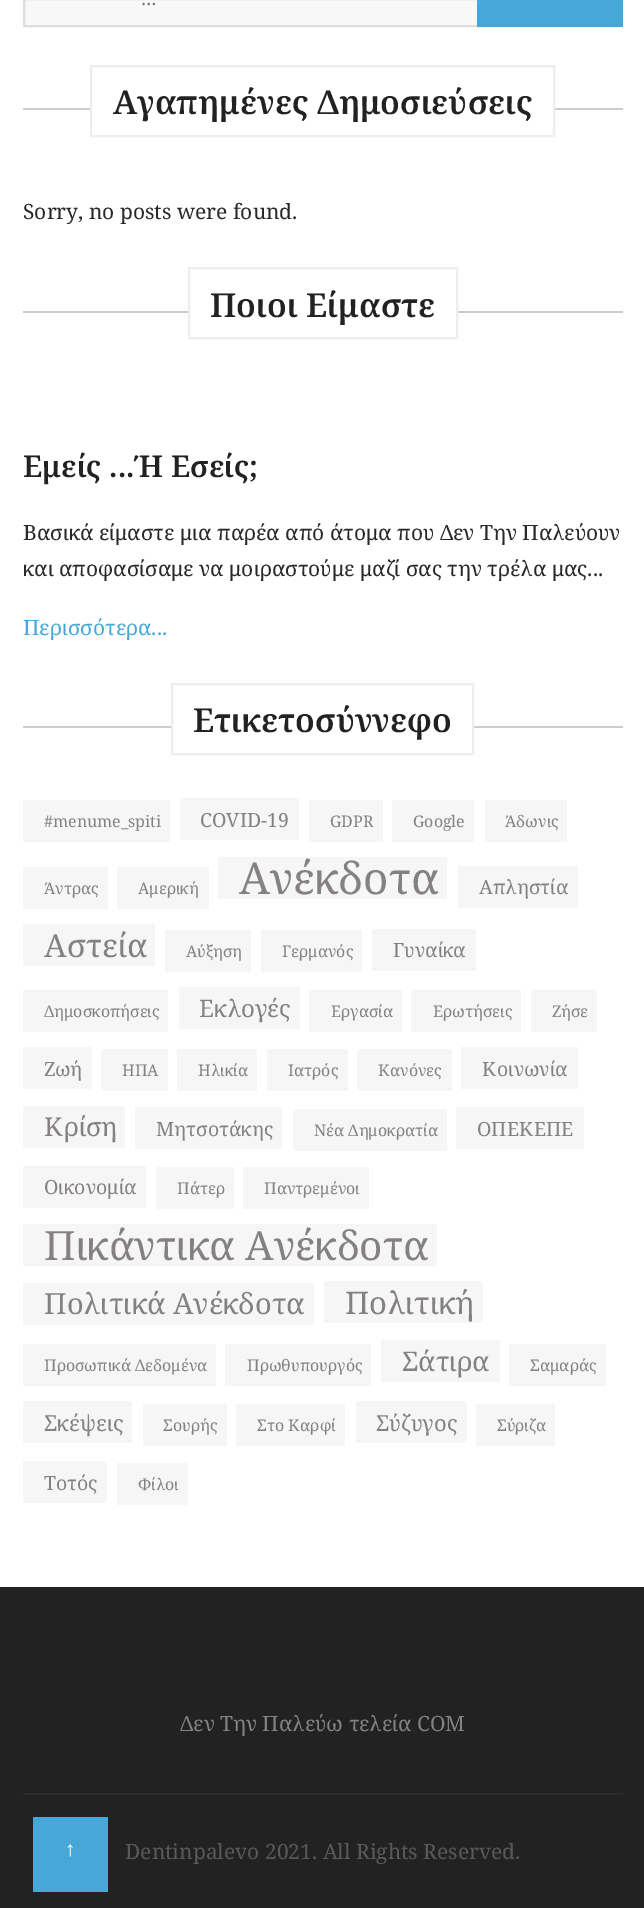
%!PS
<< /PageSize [644 1908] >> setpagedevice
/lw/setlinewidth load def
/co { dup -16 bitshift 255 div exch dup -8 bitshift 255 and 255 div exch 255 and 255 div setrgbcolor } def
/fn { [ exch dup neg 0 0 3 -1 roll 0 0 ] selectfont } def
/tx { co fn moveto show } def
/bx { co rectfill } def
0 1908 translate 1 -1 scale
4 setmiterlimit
0 0 644 1908 16#FFFFFF bx
25 0 452 25 16#F8F8F8 bx
16#DDDDDD co
2 lw
24 -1 598 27 rectstroke
477 0 146 27 16#47A7D7 bx
23 108 600 2 16#CDCDCD bx
92 108 461 2 16#FFFFFF bx
16#EEEEEE co
91 66 463 70 rectstroke
23 311 600 2 16#CDCDCD bx
190 311 266 2 16#FFFFFF bx
16#EEEEEE co
189 268 268 70 rectstroke
23 726 600 2 16#CDCDCD bx
173 726 299 2 16#FFFFFF bx
16#EEEEEE co
172 684 301 70 rectstroke
23 800 147 42 16#F6F6F6 bx
180 798 119 42 16#F6F6F6 bx
309 800 74 42 16#F6F6F6 bx
392 800 82 42 16#F6F6F6 bx
485 800 82 42 16#F6F6F6 bx
23 867 85 42 16#F6F6F6 bx
117 867 92 42 16#F6F6F6 bx
218 857 229 42 16#F6F6F6 bx
458 866 120 42 16#F6F6F6 bx
23 924 132 42 16#F6F6F6 bx
165 930 86 42 16#F6F6F6 bx
261 930 101 42 16#F6F6F6 bx
372 929 104 42 16#F6F6F6 bx
23 990 145 42 16#F6F6F6 bx
179 987 121 42 16#F6F6F6 bx
309 990 93 42 16#F6F6F6 bx
411 990 110 42 16#F6F6F6 bx
531 990 66 42 16#F6F6F6 bx
23 1047 69 42 16#F6F6F6 bx
101 1049 67 42 16#F6F6F6 bx
177 1049 80 42 16#F6F6F6 bx
267 1049 81 42 16#F6F6F6 bx
357 1049 95 42 16#F6F6F6 bx
461 1047 117 42 16#F6F6F6 bx
23 1106 102 42 16#F6F6F6 bx
135 1107 147 42 16#F6F6F6 bx
293 1109 154 42 16#F6F6F6 bx
456 1107 128 42 16#F6F6F6 bx
23 1166 123 42 16#F6F6F6 bx
156 1167 78 42 16#F6F6F6 bx
243 1167 126 42 16#F6F6F6 bx
23 1224 414 42 16#F6F6F6 bx
23 1283 291 42 16#F6F6F6 bx
324 1281 159 42 16#F6F6F6 bx
23 1344 193 42 16#F6F6F6 bx
225 1344 146 42 16#F6F6F6 bx
381 1340 119 42 16#F6F6F6 bx
509 1344 97 42 16#F6F6F6 bx
23 1401 109 42 16#F6F6F6 bx
143 1404 84 42 16#F6F6F6 bx
236 1404 109 42 16#F6F6F6 bx
356 1401 111 42 16#F6F6F6 bx
476 1404 79 42 16#F6F6F6 bx
23 1461 84 42 16#F6F6F6 bx
117 1463 71 42 16#F6F6F6 bx
0 1587 644 321 16#222222 bx
23 1793 600 2 16#2D2D2D bx
33 1817 75 75 16#47A7D7 bx
(…) 141 5 /OpenSans-Regular 20 16#757575 tx
(Αγαπημένες Δημοσιεύσεις) 113 114 /NotoSerif-SemiBold 33 16#222222 tx
(Sorry, no posts were found.) 23 219 /NotoSerif-Regular 21 16#282828 tx
(Ποιοι Είμαστε) 210 317 /NotoSerif-SemiBold 33 16#222222 tx
(Εμείς ...Ή Εσείς;) 23 477 /NotoSerif-SemiBold 30 16#222222 tx
(Βασικά είμαστε μια παρέα από άτομα που Δεν Την Παλεύουν) 23 540 /NotoSerif-Regular 21 16#282828 tx
(και αποφασίσαμε να μοιραστούμε μαζί σας την τρέλα μας...) 23 576 /NotoSerif-Regular 21 16#282828 tx
(Περισσότερα...) 23 635 /NotoSerif-Regular 21 16#47A7D7 tx
(Ετικετοσύννεφο) 193 732 /NotoSerif-SemiBold 33 16#222222 tx
(#menume_spiti) 44 827 /NotoSerif-Regular 16 16#858181 tx
(COVID-19) 200 827 /NotoSerif-Regular 19.5 16#858181 tx
(GDPR) 330 827 /NotoSerif-Regular 16 16#858181 tx
(Google) 413 827 /NotoSerif-Regular 16 16#858181 tx
(Άδωνις) 505 827 /NotoSerif-Regular 16 16#858181 tx
(Άντρας) 44 894 /NotoSerif-Regular 16 16#858181 tx
(Αμερική) 138 894 /NotoSerif-Regular 16 16#858181 tx
(Ανέκδοτα) 239 894 /NotoSerif-Regular 44 16#858181 tx
(Απληστία) 479 894 /NotoSerif-Regular 19.5 16#858181 tx
(Αστεία) 44 957 /NotoSerif-Regular 32 16#858181 tx
(Αύξηση) 186 957 /NotoSerif-Regular 16 16#858181 tx
(Γερμανός) 282 957 /NotoSerif-Regular 16 16#858181 tx
(Γυναίκα) 393 957 /NotoSerif-Regular 19.5 16#858181 tx
(Δημοσκοπήσεις) 44 1017 /NotoSerif-Regular 16 16#858181 tx
(Εκλογές) 199 1017 /NotoSerif-Regular 24 16#858181 tx
(Εργασία) 331 1017 /NotoSerif-Regular 16 16#858181 tx
(Ερωτήσεις) 433 1017 /NotoSerif-Regular 16 16#858181 tx
(Ζήσε) 552 1017 /NotoSerif-Regular 16 16#858181 tx
(Ζωή) 44 1076 /NotoSerif-Regular 19.5 16#858181 tx
(ΗΠΑ) 122 1076 /NotoSerif-Regular 16 16#858181 tx
(Ηλικία) 198 1076 /NotoSerif-Regular 16 16#858181 tx
(Ιατρός) 288 1076 /NotoSerif-Regular 16 16#858181 tx
(Κανόνες) 378 1076 /NotoSerif-Regular 16 16#858181 tx
(Κοινωνία) 482 1076 /NotoSerif-Regular 19.5 16#858181 tx
(Κρίση) 44 1136 /NotoSerif-Regular 26 16#858181 tx
(Μητσοτάκης) 156 1136 /NotoSerif-Regular 19.5 16#858181 tx
(Νέα Δημοκρατία) 314 1136 /NotoSerif-Regular 16 16#858181 tx
(ΟΠΕΚΕΠΕ) 477 1136 /NotoSerif-Regular 19.5 16#858181 tx
(Οικονομία) 44 1194 /NotoSerif-Regular 19.5 16#858181 tx
(Πάτερ) 177 1194 /NotoSerif-Regular 16 16#858181 tx
(Παντρεμένοι) 264 1194 /NotoSerif-Regular 16 16#858181 tx
(Πικάντικα Ανέκδοτα) 44 1260 /NotoSerif-Regular 40.4 16#858181 tx
(Πολιτικά Ανέκδοτα) 44 1314 /NotoSerif-Regular 29 16#858181 tx
(Πολιτική) 345 1314 /NotoSerif-Regular 31 16#858181 tx
(Προσωπικά Δεδομένα) 44 1371 /NotoSerif-Regular 16 16#858181 tx
(Πρωθυπουργός) 247 1371 /NotoSerif-Regular 16 16#858181 tx
(Σάτιρα) 402 1371 /NotoSerif-Regular 27 16#858181 tx
(Σαμαράς) 530 1371 /NotoSerif-Regular 16 16#858181 tx
(Σκέψεις) 44 1431 /NotoSerif-Regular 22 16#858181 tx
(Σουρής) 163 1431 /NotoSerif-Regular 16 16#858181 tx
(Στο Καρφί) 257 1431 /NotoSerif-Regular 16 16#858181 tx
(Σύζυγος) 376 1431 /NotoSerif-Regular 22 16#858181 tx
(Σύριζα) 497 1431 /NotoSerif-Regular 16 16#858181 tx
(Τοτός) 44 1490 /NotoSerif-Regular 19.5 16#858181 tx
(Φίλοι) 138 1490 /NotoSerif-Regular 16 16#858181 tx
(Δεν Την Παλεύω τελεία COM) 180 1731 /NotoSerif-Regular 21 16#858181 tx
(↑) 65 1856 /LiberationSerif-Regular 21 16#FFFFFF tx
(Dentinpalevo 2021. All Rights Reserved.) 125 1859 /NotoSerif-Regular 21 16#5A5959 tx
showpage
